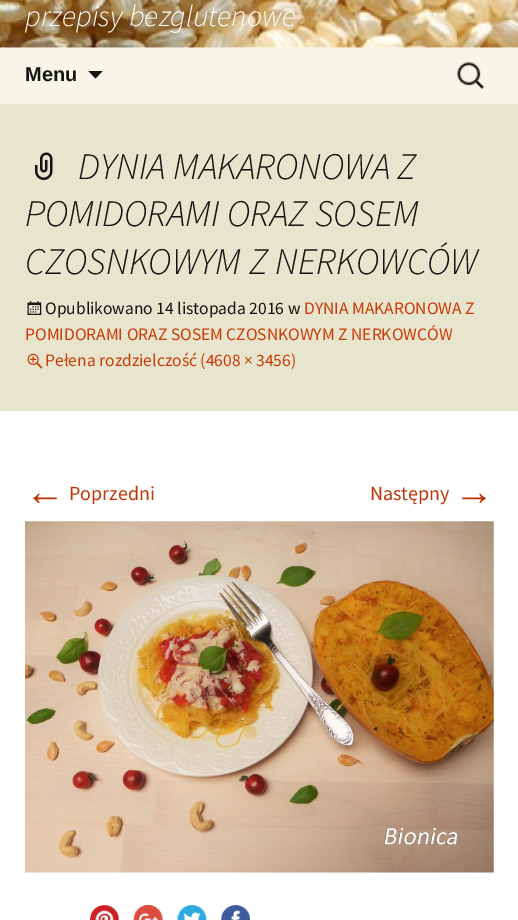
%!PS
<< /PageSize [518 920] >> setpagedevice
/mt/moveto load def
/li/lineto load def
/cp/closepath load def
/fl/fill load def
/co { dup -16 bitshift 255 div exch dup -8 bitshift 255 and 255 div exch 255 and 255 div setrgbcolor } def
/fn { [ exch dup neg 0 0 3 -1 roll 0 0 ] selectfont } def
/tx { co fn moveto show } def
/bx { co rectfill } def
/im { 5 dict begin { /h /w /y /x /name } { exch def } forall
  gsave x y translate w h scale
  w h 8 [w 0 0 h 0 0] name (r) file false 3 colorimage grestore end } def
0 920 translate 1 -1 scale
4 setmiterlimit
0 0 518 920 16#FFFFFF bx
(media/1.raw) 0 0 518 48 im
0 48 518 56 16#F7F5E7 bx
16#141412 co
88.5 71 mt 95.5 78.5 li 102.5 71 li cp fl
(media/2.raw) 457 62 27 27 im
0 104 518 307 16#E8E5CE bx
(media/3.raw) 35 152 18 28 im
(media/4.raw) 27 301 15 14 im
(media/5.raw) 27 353 16 16 im
(media/6.raw) 25 521 469 352 im
(media/7.raw) 90 905 29 15 im
(media/8.raw) 133 905 30 15 im
(media/9.raw) 177 905 30 15 im
(media/10.raw) 221 905 29 15 im
(przepisy bezglutenowe) 25 26 /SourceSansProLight-LightItalic 30 16#FFFFFF tx
(Menu) 25 81 /LiberationSans-Bold 20 16#141412 tx
(DYNIA MAKARONOWA Z) 78 179 /SourceSansProLight-LightItalic 37.5 16#141412 tx
(POMIDORAMI ORAZ SOSEM) 25 226 /SourceSansProLight-LightItalic 37.5 16#141412 tx
(CZOSNKOWYM Z NERKOWCÓW) 25 274 /SourceSansProLight-LightItalic 37.5 16#141412 tx
(Opublikowano 14 listopada 2016 w) 45 314 /SourceSansPro-Regular 17.5 16#141412 tx
(DYNIA MAKARONOWA Z) 304 314 /SourceSansPro-Regular 17.5 16#CA3C08 tx
(POMIDORAMI ORAZ SOSEM CZOSNKOWYM Z NERKOWCÓW) 25 340 /SourceSansPro-Regular 17.5 16#CA3C08 tx
(Pełena rozdzielczość \(4608 × 3456\)) 45 366 /SourceSansPro-Regular 17.5 16#CA3C08 tx
(←) 25 505 /LiberationSans-Regular 40 16#BC360A tx
(Poprzedni) 69 500 /SourceSansPro-Regular 20 16#BC360A tx
(Następny) 370 500 /SourceSansPro-Regular 20 16#BC360A tx
(→) 454 505 /LiberationSans-Regular 40 16#BC360A tx
showpage
